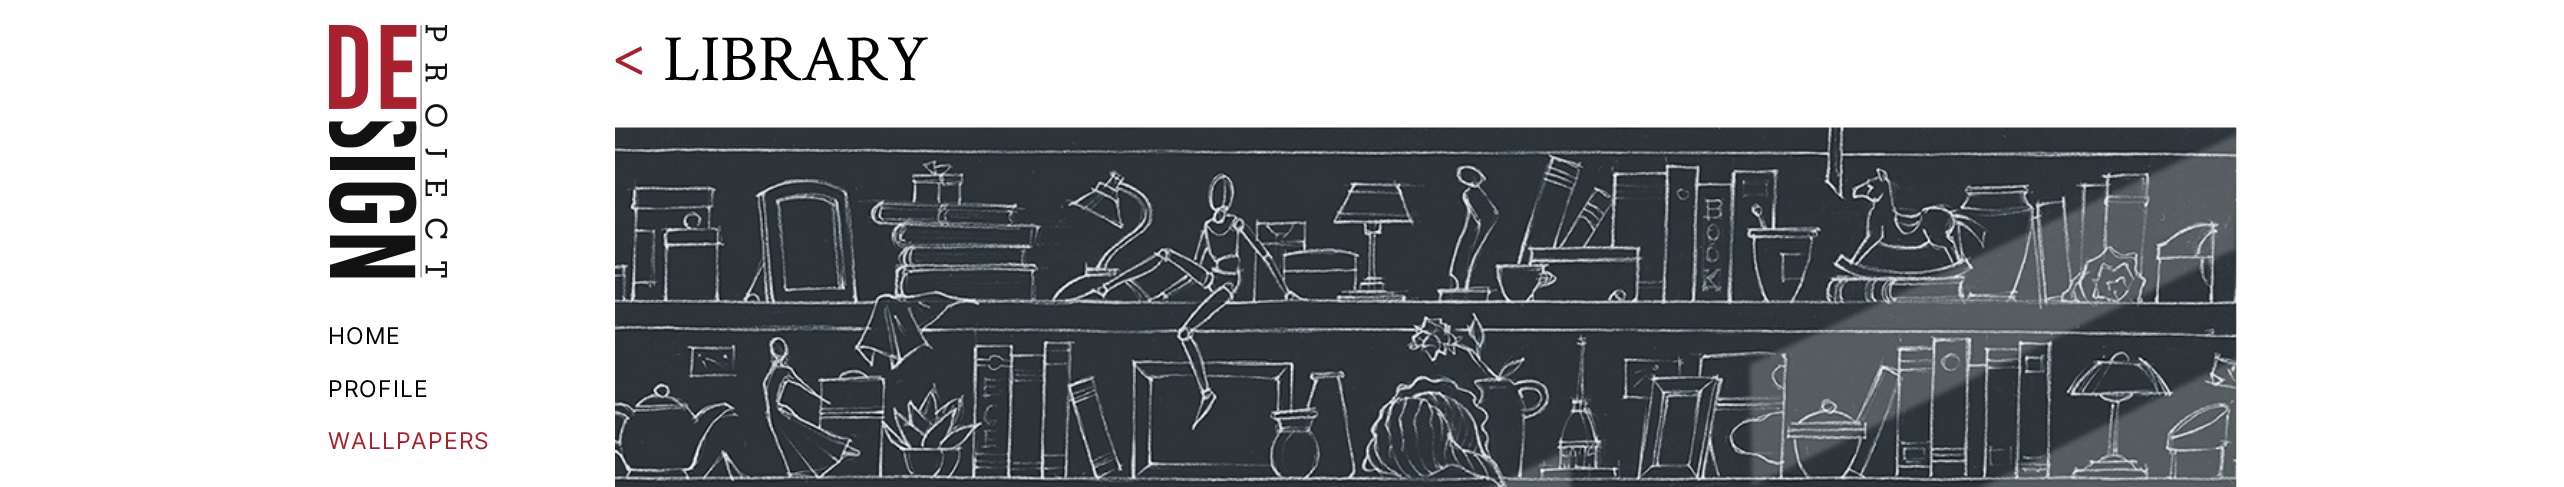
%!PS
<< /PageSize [2564 487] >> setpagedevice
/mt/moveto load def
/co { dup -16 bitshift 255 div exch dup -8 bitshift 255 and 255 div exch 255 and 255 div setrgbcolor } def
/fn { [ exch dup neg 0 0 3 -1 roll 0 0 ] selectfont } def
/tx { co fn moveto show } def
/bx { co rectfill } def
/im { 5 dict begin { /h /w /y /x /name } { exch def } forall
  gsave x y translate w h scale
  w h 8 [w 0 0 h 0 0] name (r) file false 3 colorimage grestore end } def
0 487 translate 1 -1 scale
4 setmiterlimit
0 0 2564 487 16#FFFFFF bx
(media/1.raw) 615 127 1622 360 im
(media/2.raw) 329 25 119 253 im
(<) 614 74 /CrimsonText-SemiBold 66 16#A7212F tx
(LIBRARY) 663 80 /CrimsonText-Regular 66 16#000000 tx
/Inter-Regular 23 fn
328 344 mt 1.1 0 (HOME) ashow
328 397 mt 1.1 0 (PROFILE) ashow
16#A7212F co
328 449 mt 1.1 0 (WALLPAPERS) ashow
showpage
